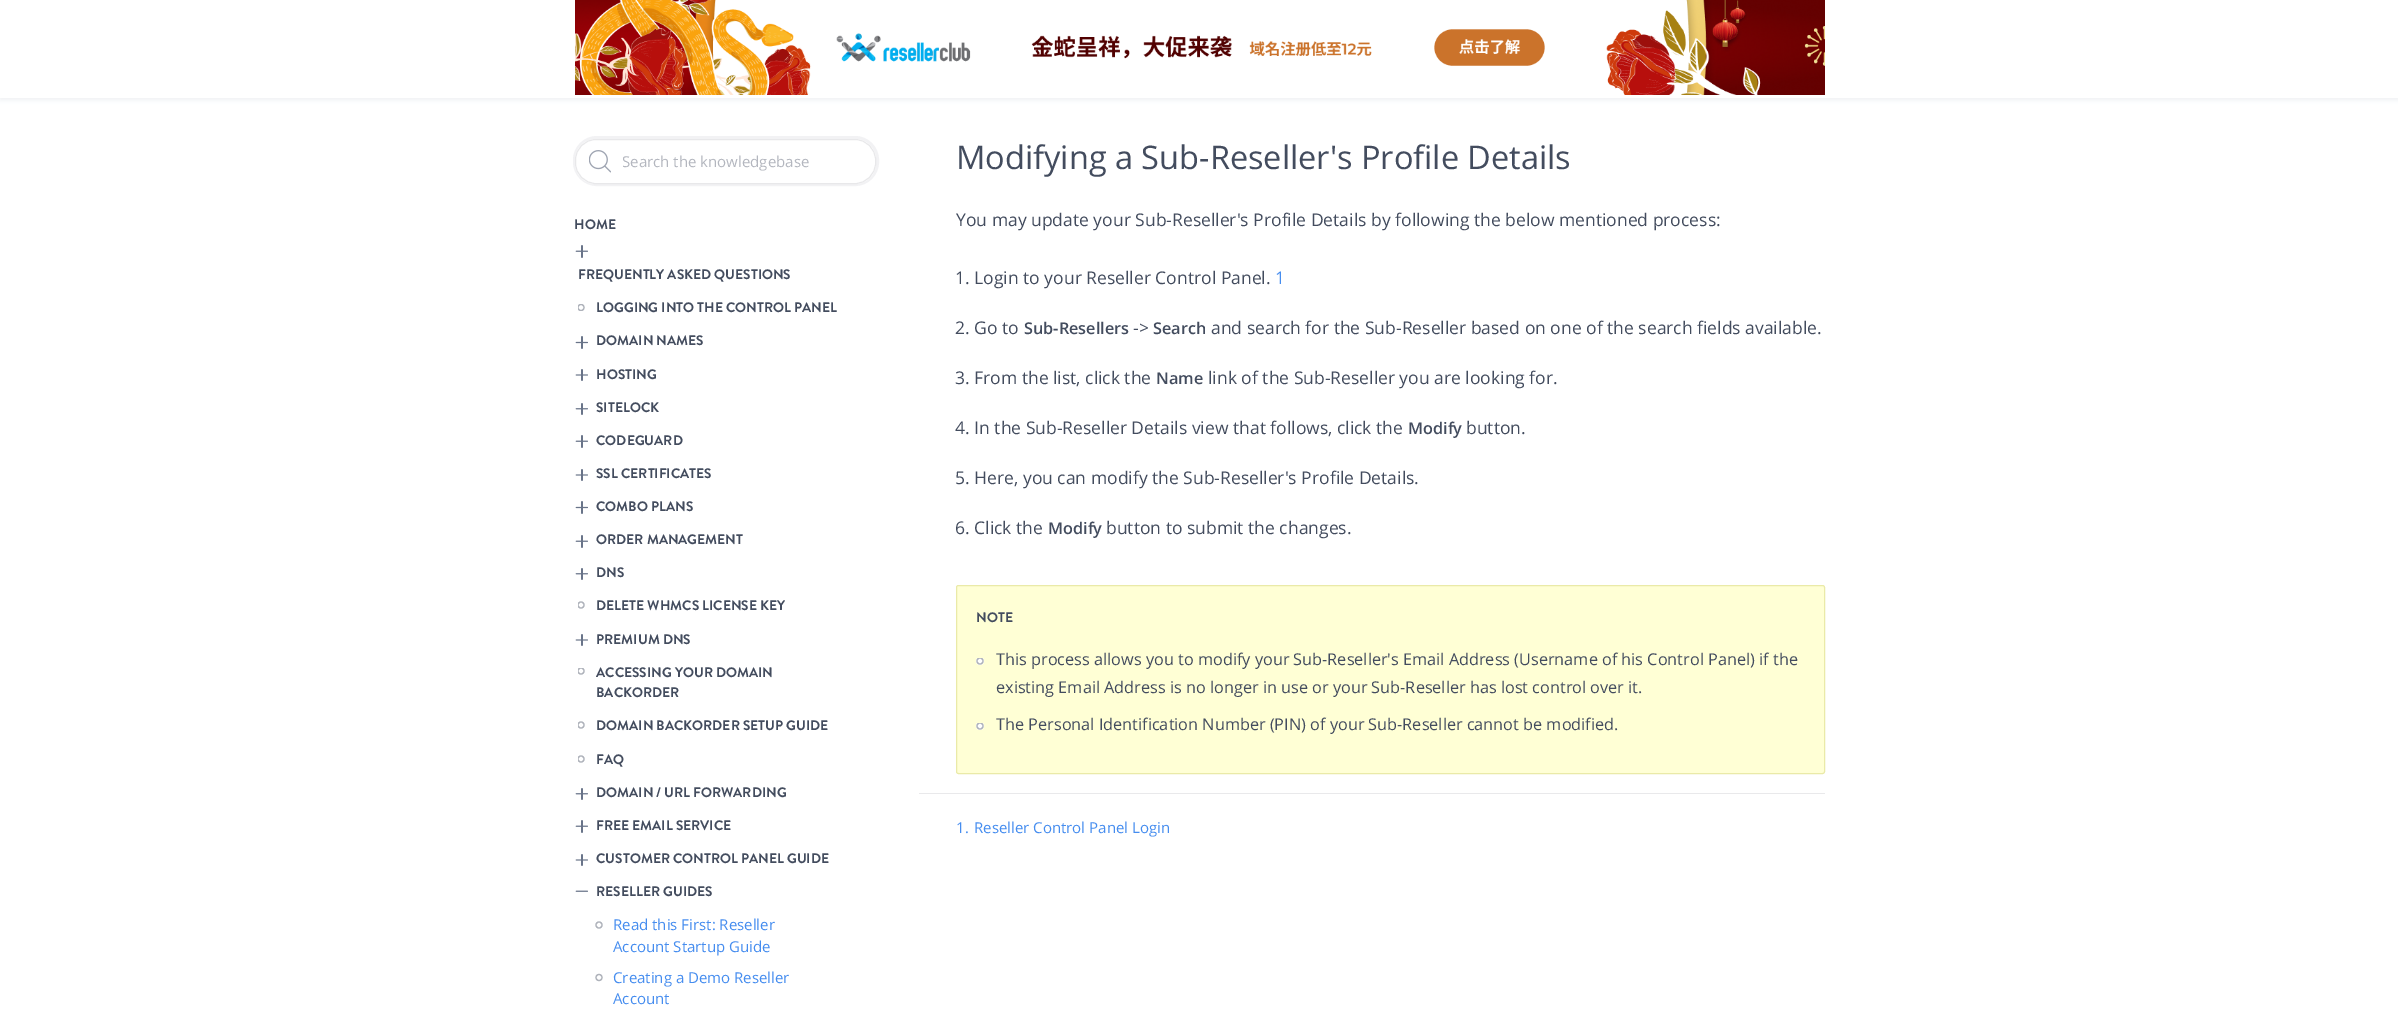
%!PS
<< /PageSize [2398 1023] /PageUsesTransparency true >> setpagedevice
/mt/moveto load def
/li/lineto load def
/cp/closepath load def
/fl/fill load def
/st/stroke load def
/gs/gsave load def
/gr/grestore load def
/lw/setlinewidth load def
/co { dup -16 bitshift 255 div exch dup -8 bitshift 255 and 255 div exch 255 and 255 div setrgbcolor } def
/fn { [ exch dup neg 0 0 3 -1 roll 0 0 ] selectfont } def
/tx { co fn moveto show } def
/bx { co rectfill } def
/al { dup .setfillconstantalpha .setstrokeconstantalpha } def
/ci { newpath 0 360 arc closepath } def
/rr { 5 dict begin { /r /h /w /y /x } { exch def } forall
  x r add y moveto x w add y 2 copy h add r arct x w add y h add x 1 index r arct
  x y h add x y r arct x y 2 copy exch w add exch r arct closepath end } def
/sh { 12 dict begin { /a /b /q /h /w /y /x } { exch def } forall gsave /was 0 def
  9 -2 -9 { dup b mul 4 div /e exch def 1 sub .425 mul 2.718 exch exp 1 add a .99 .min exch div /now exch def
    1 1 now sub 1 was sub div sub al /was now def
    w h .min e 2 mul add 0 gt { x e sub y e sub w e 2 mul add h e 2 mul add
      q e add b .6 mul add w h .min 2 div e add .min 0 .max rr fill } if } for grestore end } def
/im { 5 dict begin { /h /w /y /x /name } { exch def } forall
  gsave x y translate w h scale
  w h 8 [w 0 0 h 0 0] name (r) file false 3 colorimage grestore end } def
0 .pushpdf14devicefilter
0 1023 translate 1 -1 scale
4 setmiterlimit
0 0 2398 1023 16#FFFFFF bx
gs
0 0 mt 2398 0 li 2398 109 li 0 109 li cp 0 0 mt 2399 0 li 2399 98 li 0 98 li cp eoclip newpath
16#DDE1E6 co
0 3 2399 97 0 2.5 .5 sh
gr
(media/1.raw) 575 0 1250 95 im
16#F2F2F4 co
3 lw
574.5 137.5 303 47 22.5 rr st
16#FFFFFF co
575 139 301 45 21 rr fl
(media/2.raw) 589 150 22 23 im
16#E8E8EA co
1 lw
575.5 139.5 300 44 20.5 rr st
(media/3.raw) 575 245 13 13 im
gs
578 304 7 7 rectclip
16#AEB2BA co
1.2 lw
581 307.5 3 ci st
gr
(media/4.raw) 575 336 13 13 im
(media/5.raw) 575 369 13 12 im
(media/6.raw) 575 403 13 12 im
(media/3.raw) 575 435 13 13 im
(media/5.raw) 575 469 13 12 im
(media/4.raw) 575 501 13 13 im
(media/3.raw) 575 535 13 13 im
(media/6.raw) 575 568 13 12 im
gs
578 601 7 8 rectclip
16#AEB2BA co
1.2 lw
581 605 3 ci st
gr
(media/5.raw) 575 634 13 12 im
gs
578 668 7 7 rectclip
16#AEB2BA co
1.2 lw
581 671 3 ci st
gr
gs
578 721 7 8 rectclip
16#AEB2BA co
1.2 lw
581 725 3 ci st
gr
gs
578 755 7 8 rectclip
16#AEB2BA co
1.2 lw
581 759 3 ci st
gr
(media/6.raw) 575 788 13 12 im
(media/3.raw) 575 820 13 13 im
(media/5.raw) 575 854 13 12 im
(media/7.raw) 575 890 13 2 im
16#AEB2BA co
1.2 lw
599 925 3 ci st
599 977.5 3 ci st
16#FFFFD5 co
956.5 585.5 868 188 2 rr gs fl gr
16#EAEAA8 co
1 lw
st
gs
976 658 8 7 rectclip
16#FFFFFF co
980 661 4 ci fl
16#AEB2BA co
1.2 lw
980 661 3 ci st
gr
gs
976 723 8 7 rectclip
16#FFFFFF co
980 726 4 ci fl
16#AEB2BA co
1.2 lw
980 726 3 ci st
gr
919 793 906 1 16#E9E9EB bx
gs
623 151 247 20 rectclip
(Search the knowledgebase) 622 167 /OpenSans-Regular 15 16#B4B7BF tx
gr
(HOME) 574 229 /BrandonGrotesque-Bold 13.75 16#434C5E tx
(FREQUENTLY ASKED QUESTIONS) 578 279 /BrandonGrotesque-Bold 13.75 16#434C5E tx
(LOGGING INTO THE CONTROL PANEL) 596 312 /BrandonGrotesque-Bold 13.75 16#434C5E tx
(DOMAIN NAMES) 596 345 /BrandonGrotesque-Bold 13.75 16#434C5E tx
(HOSTING) 596 379 /BrandonGrotesque-Bold 13.75 16#434C5E tx
(SITELOCK) 596 412 /BrandonGrotesque-Bold 13.75 16#434C5E tx
(CODEGUARD) 596 445 /BrandonGrotesque-Bold 13.75 16#434C5E tx
(SSL CERTIFICATES) 596 478 /BrandonGrotesque-Bold 13.75 16#434C5E tx
(COMBO PLANS) 596 511 /BrandonGrotesque-Bold 13.75 16#434C5E tx
(ORDER MANAGEMENT) 596 544 /BrandonGrotesque-Bold 13.75 16#434C5E tx
(DNS) 596 577 /BrandonGrotesque-Bold 13.75 16#434C5E tx
(DELETE WHMCS LICENSE KEY) 596 610 /BrandonGrotesque-Bold 13.75 16#434C5E tx
(PREMIUM DNS) 596 644 /BrandonGrotesque-Bold 13.75 16#434C5E tx
(ACCESSING YOUR DOMAIN) 596 677 /BrandonGrotesque-Bold 13.75 16#434C5E tx
(BACKORDER) 596 697 /BrandonGrotesque-Bold 13.75 16#434C5E tx
(DOMAIN BACKORDER SETUP GUIDE) 596 730 /BrandonGrotesque-Bold 13.75 16#434C5E tx
(FAQ) 596 764 /BrandonGrotesque-Bold 13.75 16#434C5E tx
(DOMAIN / URL FORWARDING) 596 797 /BrandonGrotesque-Bold 13.75 16#434C5E tx
(FREE EMAIL SERVICE) 596 830 /BrandonGrotesque-Bold 13.75 16#434C5E tx
(CUSTOMER CONTROL PANEL GUIDE) 596 863 /BrandonGrotesque-Bold 13.75 16#434C5E tx
(RESELLER GUIDES) 596 896 /BrandonGrotesque-Bold 13.75 16#434C5E tx
(Read this First: Reseller) 613 930 /OpenSans-Regular 15 16#468DEF tx
(Account Startup Guide) 613 952 /OpenSans-Regular 15 16#468DEF tx
(Creating a Demo Reseller) 613 983 /OpenSans-Regular 15 16#468DEF tx
(Account) 613 1004 /OpenSans-Regular 15 16#468DEF tx
(Modifying a Sub-Reseller's Profile Details) 956 169 /OpenSans-Regular 32.5 16#434C5E tx
(You may update your Sub-Reseller's Profile Details by following the below mentioned process:) 956 226 /OpenSans-Regular 17.5 16#434C5E tx
(1. Login to your Reseller Control Panel.) 955 284 /OpenSans-Regular 17.5 16#434C5E tx
(1) 1275 284 /OpenSans-Regular 17.5 16#468DEF tx
(2. Go to) 955 334 /OpenSans-Regular 17.5 16#434C5E tx
(Sub-Resellers) 1024 334 /OpenSans-SemiBold 16.25 16#434C5E tx
(->) 1133 334 /OpenSans-Regular 17.5 16#434C5E tx
(Search) 1153 334 /OpenSans-SemiBold 16.25 16#434C5E tx
(and search for the Sub-Reseller based on one of the search fields available.) 1211 334 /OpenSans-Regular 17.5 16#434C5E tx
(3. From the list, click the) 955 384 /OpenSans-Regular 17.5 16#434C5E tx
(Name) 1156 384 /OpenSans-SemiBold 16.25 16#434C5E tx
(link of the Sub-Reseller you are looking for.) 1208 384 /OpenSans-Regular 17.5 16#434C5E tx
(4. In the Sub-Reseller Details view that follows, click the) 955 434 /OpenSans-Regular 17.5 16#434C5E tx
(Modify) 1408 434 /OpenSans-SemiBold 16.25 16#434C5E tx
(button.) 1466 434 /OpenSans-Regular 17.5 16#434C5E tx
(5. Here, you can modify the Sub-Reseller's Profile Details.) 955 484 /OpenSans-Regular 17.5 16#434C5E tx
(6. Click the) 955 534 /OpenSans-Regular 17.5 16#434C5E tx
(Modify) 1048 534 /OpenSans-SemiBold 16.25 16#434C5E tx
(button to submit the changes.) 1106 534 /OpenSans-Regular 17.5 16#434C5E tx
(NOTE) 976 622 /BrandonGrotesque-Bold 13.75 16#434C5E tx
(This process allows you to modify your Sub-Reseller's Email Address \(Username of his Control Panel\) if the) 996 665 /OpenSans-Regular 16.25 16#434C5E tx
(existing Email Address is no longer in use or your Sub-Reseller has lost control over it.) 996 693 /OpenSans-Regular 16.25 16#434C5E tx
(The Personal Identification Number \(PIN\) of your Sub-Reseller cannot be modified.) 996 730 /OpenSans-Regular 16.25 16#434C5E tx
(1.) 956 833 /OpenSans-Regular 15 16#468DEF tx
(Reseller Control Panel Login) 974 833 /OpenSans-Regular 15 16#468DEF tx
.poppdf14devicefilter showpage
